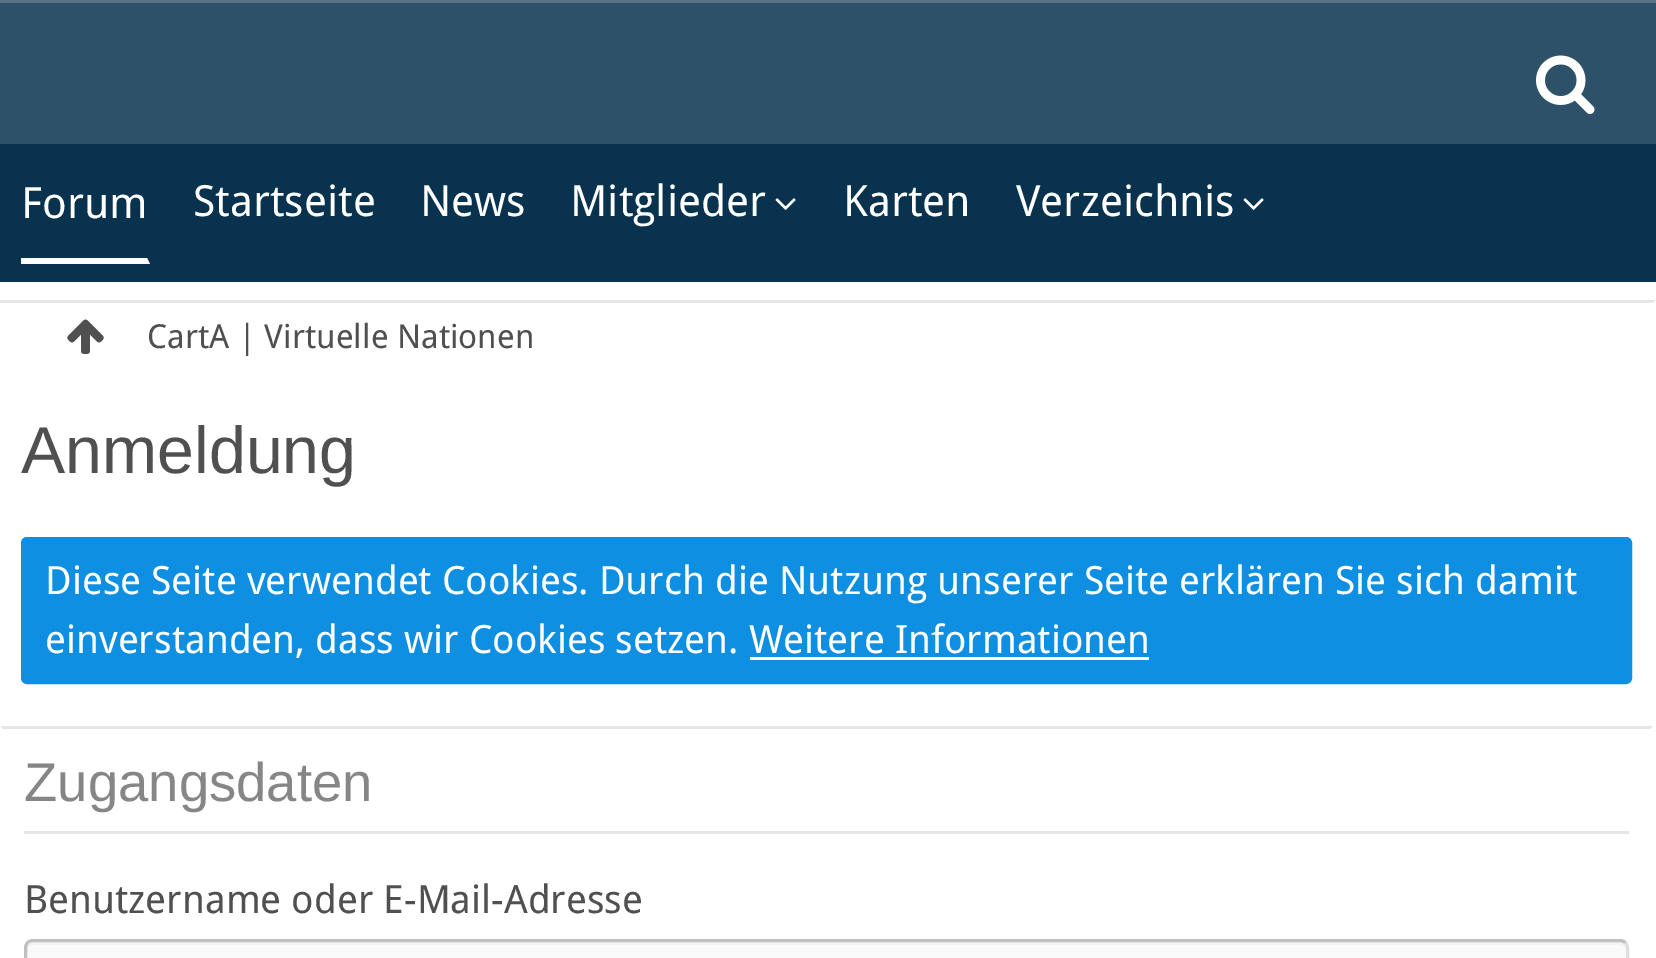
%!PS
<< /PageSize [1656 958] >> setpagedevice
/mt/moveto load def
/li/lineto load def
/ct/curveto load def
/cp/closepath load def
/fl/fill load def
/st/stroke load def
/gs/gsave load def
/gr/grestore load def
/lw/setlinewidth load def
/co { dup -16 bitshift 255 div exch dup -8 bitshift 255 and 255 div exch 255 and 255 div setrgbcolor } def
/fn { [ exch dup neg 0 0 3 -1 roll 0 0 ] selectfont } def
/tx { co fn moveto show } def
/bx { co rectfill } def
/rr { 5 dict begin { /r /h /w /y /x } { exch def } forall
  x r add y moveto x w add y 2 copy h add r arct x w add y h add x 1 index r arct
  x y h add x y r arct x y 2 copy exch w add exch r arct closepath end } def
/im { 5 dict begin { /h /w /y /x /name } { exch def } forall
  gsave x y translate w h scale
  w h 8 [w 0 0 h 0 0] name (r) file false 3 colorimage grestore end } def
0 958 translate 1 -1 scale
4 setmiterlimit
0 0 1656 958 16#08324D bx
0 3 1656 141 16#2D5168 bx
0 0 1656 3 16#577486 bx
(media/1.raw) 1536 55 59 59 im
16#FFFFFF co
150 264 mt 21 264 li 21 258 li 147 258 li cp fl
(media/2.raw) 775 198 21 12 im
(media/2.raw) 1243 198 21 12 im
0 282 1656 676 16#FFFFFF bx
16#E6E6E6 co
0 300 mt 1656 300 li 1653 303 li 0 303 li cp fl
(media/3.raw) 67 319 37 35 im
16#0F8FE2 co
22.5 538.5 1608 144 4.5 rr gs fl gr
3 lw
st
750 657 399 3 16#FFFFFF bx
16#E6E6E6 co
0 726 mt 1653 726 li 1650 729 li 3 729 li cp fl
24 831 1605 3 16#E6E6E6 bx
16#F9F9F9 co
24 939 1605 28 9 rr fl
16#F3F3F3 co
33 945 mt 1620 945 li 1623 945 1626 948 1626 951 ct 1626 948 li 1626 945 1623 942 1620 942 ct 33 942 li 30 942 27 945 27 948 ct 27 951 li 27 948 30 945 33 945 ct cp fl
16#DEDEDE co
1625.5 942.5 mt 1626.5 944 1627.5 946 1627.5 948 ct 1627.5 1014 li 1627.5 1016 1626.5 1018 1625.5 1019.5 ct 1624 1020.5 1622 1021.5 1620 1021.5 ct 33 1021.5 li 31 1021.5 29 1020.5 27.5 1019.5 ct st
16#C0C0C0 co
27.5 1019.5 mt 26.5 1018 25.5 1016 25.5 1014 ct 25.5 948 li 25.5 946 26.5 944 27.5 942.5 ct 29 941.5 31 940.5 33 940.5 ct 1620 940.5 li 1622 940.5 1624 941.5 1625.5 942.5 ct st
(Forum) 21 218 /DroidSans-Regular 43 16#FFFFFF tx
(Startseite) 193 216 /DroidSans-Regular 43 16#FFFFFF tx
(News) 420 216 /DroidSans-Regular 43 16#FFFFFF tx
(Mitglieder) 570 216 /DroidSans-Regular 43 16#FFFFFF tx
(Karten) 843 216 /DroidSans-Regular 43 16#FFFFFF tx
(Verzeichnis) 1016 216 /DroidSans-Regular 43 16#FFFFFF tx
(CartA | Virtuelle Nationen) 147 348 /DroidSans-Regular 33.1 16#505050 tx
(Anmeldung) 21 473 /LiberationSans-Regular 66.25 16#505050 tx
(Diese Seite verwendet Cookies. Durch die Nutzung unserer Seite erklären Sie sich damit) 45 594 /DroidSans-Regular 39 16#FFFFFF tx
(einverstanden, dass wir Cookies setzen. Weitere Informationen) 45 653 /DroidSans-Regular 39 16#FFFFFF tx
(Zugangsdaten) 24 801 /LiberationSans-Regular 54.5 16#868686 tx
(Benutzername oder E-Mail-Adresse) 24 913 /DroidSans-Regular 39 16#505050 tx
showpage
